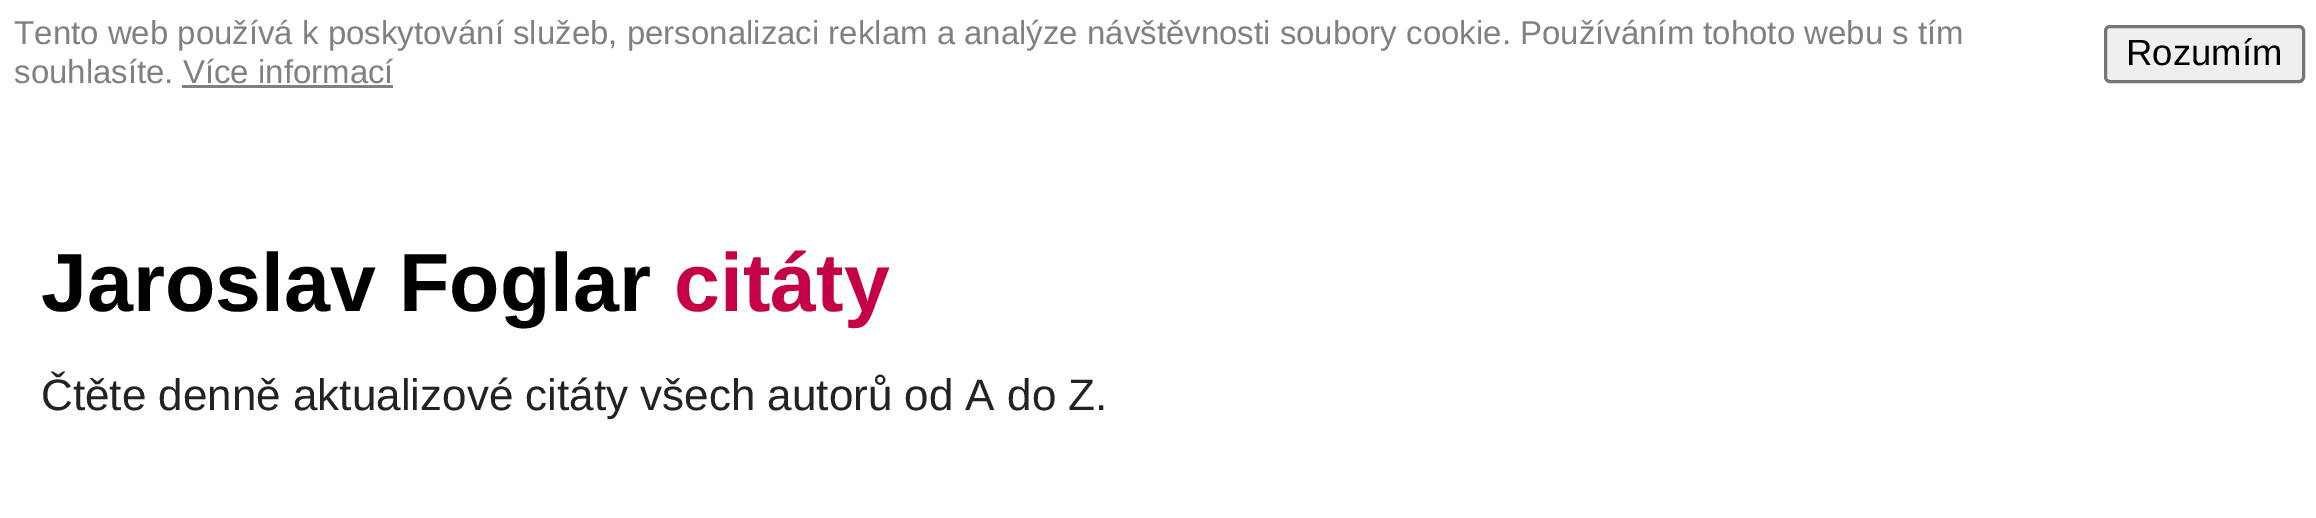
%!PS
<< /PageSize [2316 518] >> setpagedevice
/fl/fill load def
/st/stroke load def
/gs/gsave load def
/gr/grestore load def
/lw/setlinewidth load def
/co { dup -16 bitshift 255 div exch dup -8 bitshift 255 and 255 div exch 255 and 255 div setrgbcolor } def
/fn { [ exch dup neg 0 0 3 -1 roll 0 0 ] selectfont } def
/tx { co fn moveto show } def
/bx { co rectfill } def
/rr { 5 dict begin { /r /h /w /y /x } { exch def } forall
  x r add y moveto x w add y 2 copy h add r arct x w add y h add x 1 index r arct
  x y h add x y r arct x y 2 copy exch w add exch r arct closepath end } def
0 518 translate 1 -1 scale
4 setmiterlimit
0 0 2316 518 16#FFFFFF bx
182 85 211 3 16#808080 bx
16#EFEFEF co
2105.5 26.5 198 55 4.5 rr gs fl gr
16#767676 co
3 lw
st
(Tento web používá k poskytování služeb, personalizaci reklam a analýze návštěvnosti soubory cookie. Používáním tohoto webu s tím) 14 44 /LiberationSans-Regular 33 16#808080 tx
(souhlasíte. Více informací) 14 83 /LiberationSans-Regular 33 16#808080 tx
(Rozumím) 2126 65 /LiberationSans-Regular 36.5 16#000000 tx
(Jaroslav Foglar) 41 311 /LiberationSans-Bold 82.5 16#000000 tx
(citáty) 674 311 /LiberationSans-Bold 82.5 16#C60046 tx
(Čtěte denně aktualizové citáty všech autorů od A do Z.) 41 410 /LiberationSans-Regular 44 16#222222 tx
showpage
